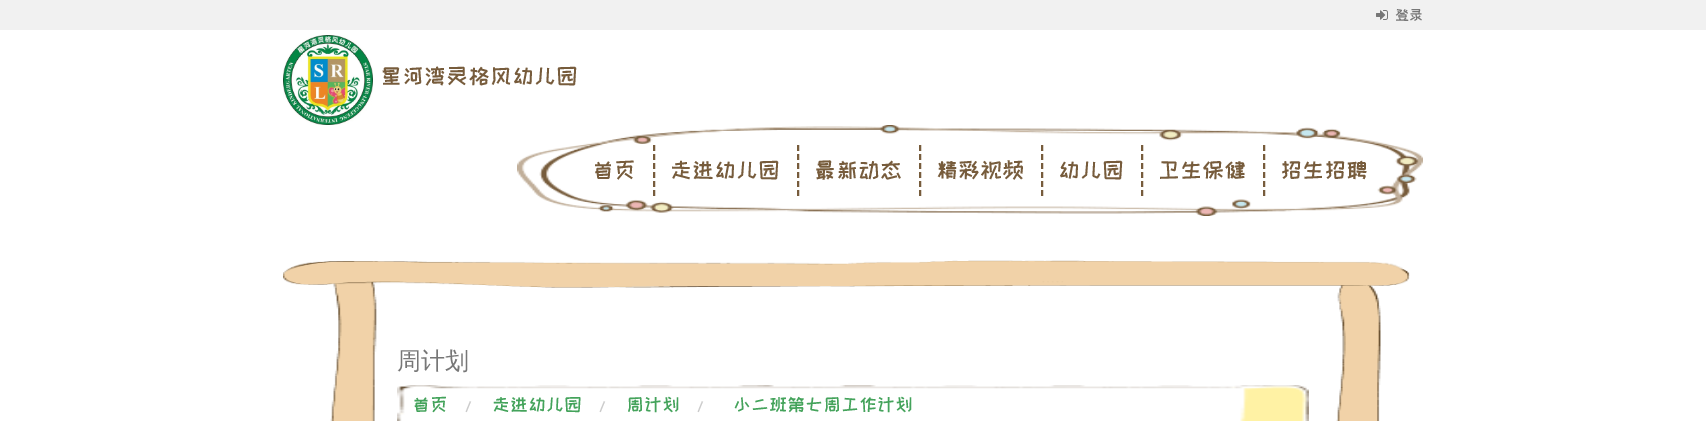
%!PS
<< /PageSize [1706 421] >> setpagedevice
/mt/moveto load def
/li/lineto load def
/st/stroke load def
/lw/setlinewidth load def
/co { dup -16 bitshift 255 div exch dup -8 bitshift 255 and 255 div exch 255 and 255 div setrgbcolor } def
/fn { [ exch dup neg 0 0 3 -1 roll 0 0 ] selectfont } def
/tx { co fn moveto show } def
/bx { co rectfill } def
/im { 5 dict begin { /h /w /y /x /name } { exch def } forall
  gsave x y translate w h scale
  w h 8 [w 0 0 h 0 0] name (r) file false 3 colorimage grestore end } def
0 421 translate 1 -1 scale
4 setmiterlimit
0 0 1706 421 16#FFFFFF bx
0 0 1706 30 16#F1F1F1 bx
(media/1.raw) 1376 10 12 10 im
(media/2.raw) 283 35 90 90 im
(media/3.raw) 517 125 906 91 im
16#775C3C co
2 lw
[6 3] 0 setdash
654 145 mt 654 196 li st
798 145 mt 798 196 li st
920 145 mt 920 196 li st
1042 145 mt 1042 196 li st
1142 145 mt 1142 196 li st
1264 145 mt 1264 196 li st
(media/4.raw) 283 260 1127 161 im
(media/5.raw) 397 385 912 36 im
(登录) 1395 20 /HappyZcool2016-Regular 14 16#777777 tx
(星河湾灵格风幼儿园) 380 84 /HappyZcool2016-Regular 22 16#775C3C tx
(首页) 592 178 /HappyZcool2016-Regular 22 16#775C3C tx
(走进幼儿园) 670 178 /HappyZcool2016-Regular 22 16#775C3C tx
(最新动态) 814 178 /HappyZcool2016-Regular 22 16#775C3C tx
(精彩视频) 936 178 /HappyZcool2016-Regular 22 16#775C3C tx
(幼儿园) 1058 178 /HappyZcool2016-Regular 22 16#775C3C tx
(卫生保健) 1158 178 /HappyZcool2016-Regular 22 16#775C3C tx
(招生招聘) 1280 178 /HappyZcool2016-Regular 22 16#775C3C tx
(周计划) 397 369 /WenQuanYiZenHei-Medium 24 16#777777 tx
(首页) 412 411 /HappyZcool2016-Regular 18 16#44A35B tx
(/) 460 411 /HappyZcool2016-Regular 18 16#CCCCCC tx
(走进幼儿园) 492 411 /HappyZcool2016-Regular 18 16#44A35B tx
(/) 594 411 /HappyZcool2016-Regular 18 16#CCCCCC tx
(周计划) 626 411 /HappyZcool2016-Regular 18 16#44A35B tx
(/) 692 411 /HappyZcool2016-Regular 18 16#CCCCCC tx
(小二班第七周工作计划) 733 411 /HappyZcool2016-Regular 18 16#44A35B tx
showpage
